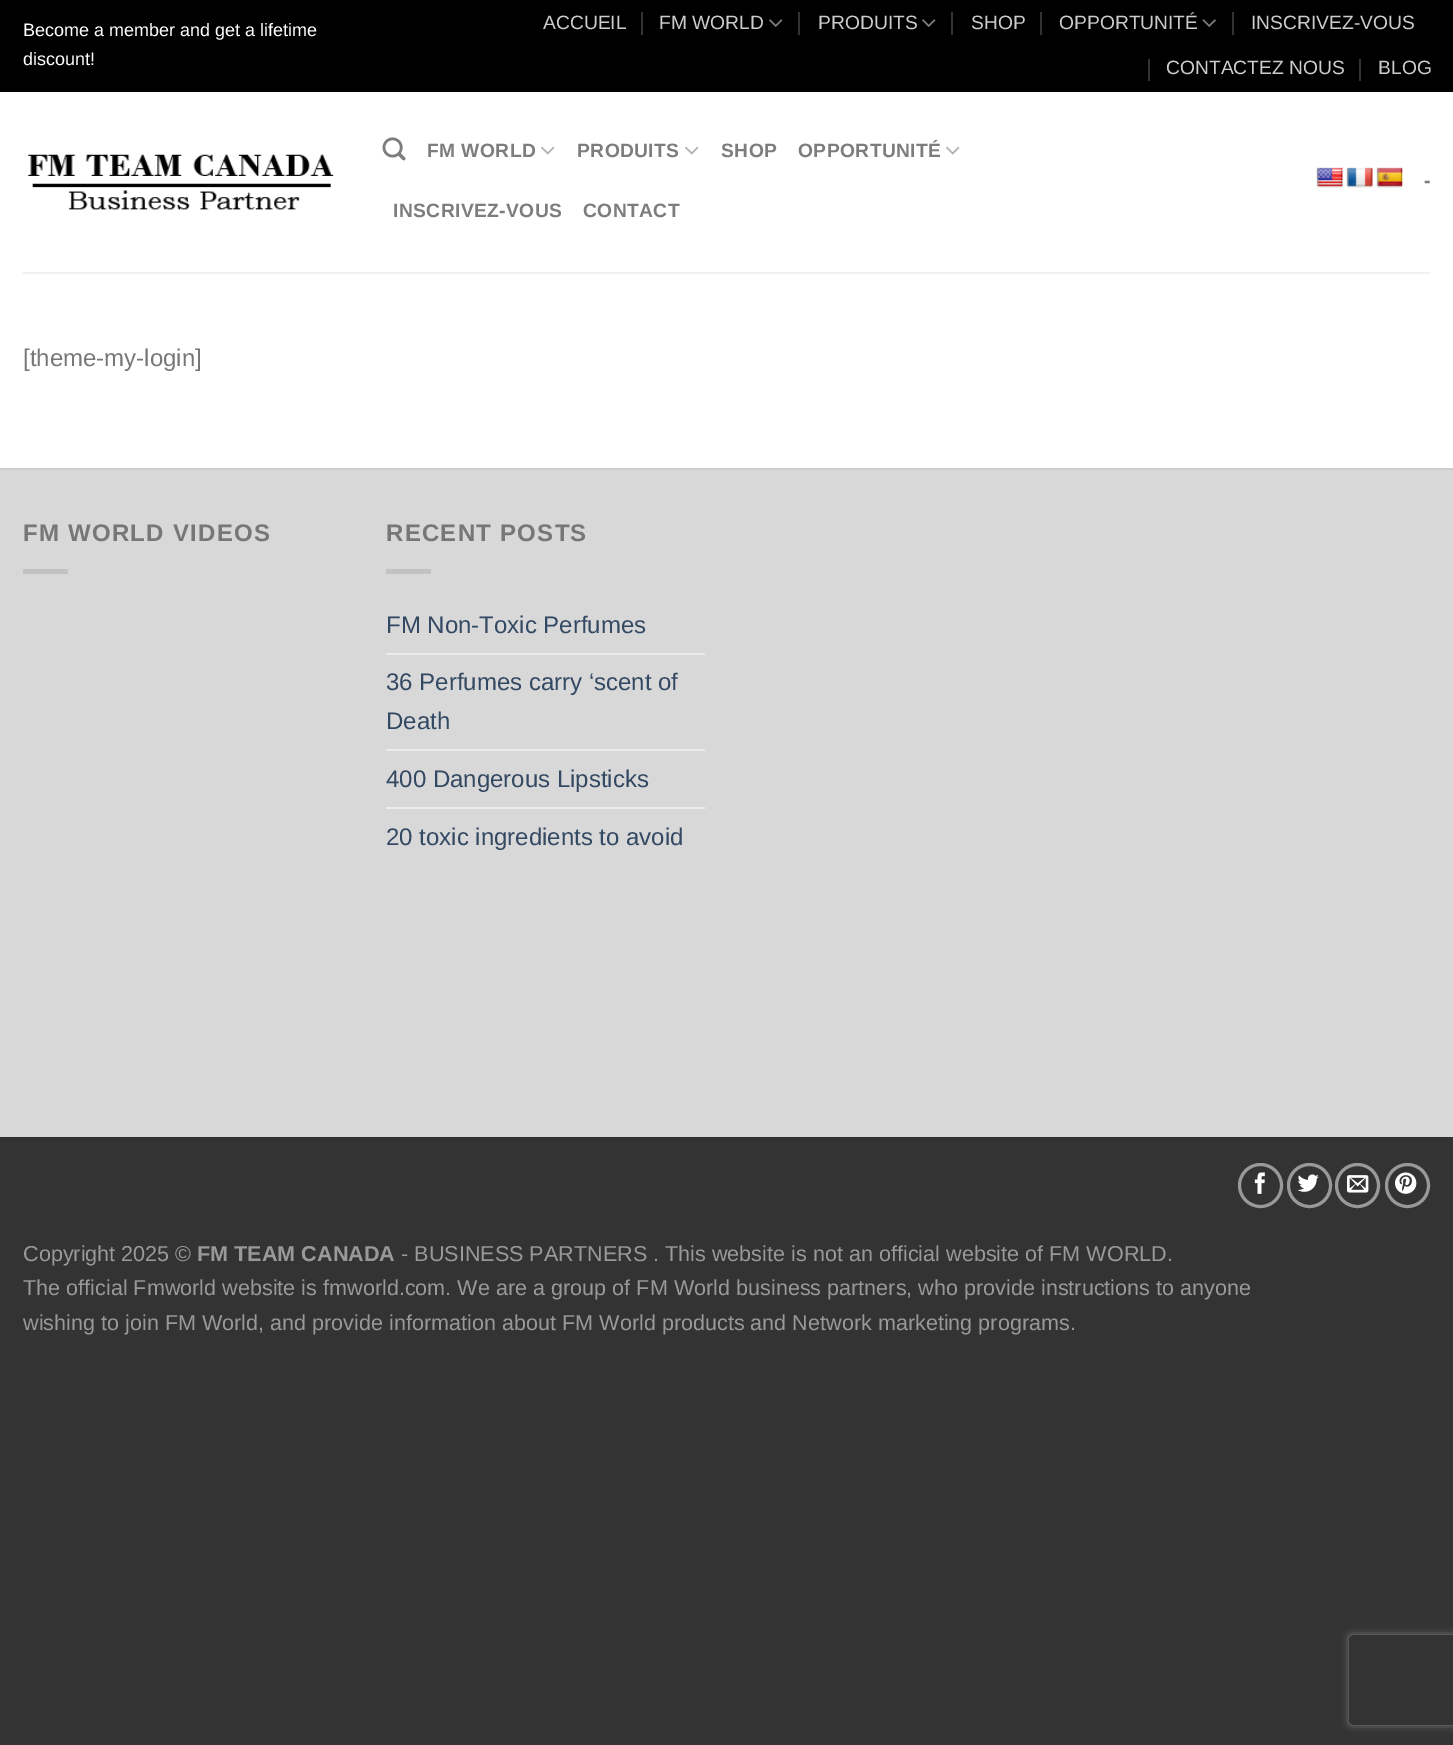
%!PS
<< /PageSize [1453 1745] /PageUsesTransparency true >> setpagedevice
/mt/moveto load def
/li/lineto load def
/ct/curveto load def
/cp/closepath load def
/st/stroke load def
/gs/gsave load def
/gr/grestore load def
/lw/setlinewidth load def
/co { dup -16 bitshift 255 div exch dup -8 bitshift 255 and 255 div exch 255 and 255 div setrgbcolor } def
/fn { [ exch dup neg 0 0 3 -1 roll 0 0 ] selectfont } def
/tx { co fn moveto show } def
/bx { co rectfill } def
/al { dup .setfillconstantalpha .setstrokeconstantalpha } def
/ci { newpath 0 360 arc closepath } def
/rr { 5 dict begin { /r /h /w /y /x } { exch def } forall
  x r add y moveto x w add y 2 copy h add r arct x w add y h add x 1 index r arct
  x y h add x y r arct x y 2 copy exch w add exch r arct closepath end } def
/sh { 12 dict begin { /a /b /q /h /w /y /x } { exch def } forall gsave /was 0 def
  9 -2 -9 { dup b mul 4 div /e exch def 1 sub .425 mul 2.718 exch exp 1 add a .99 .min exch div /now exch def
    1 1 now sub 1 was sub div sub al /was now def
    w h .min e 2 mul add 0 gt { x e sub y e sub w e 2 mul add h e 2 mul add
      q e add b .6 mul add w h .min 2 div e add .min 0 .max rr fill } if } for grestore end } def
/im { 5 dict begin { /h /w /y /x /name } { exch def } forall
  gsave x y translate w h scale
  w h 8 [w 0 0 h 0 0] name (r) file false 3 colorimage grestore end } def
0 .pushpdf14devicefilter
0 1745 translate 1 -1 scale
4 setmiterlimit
0 0 1453 1745 16#333333 bx
0 92 1453 376 16#FFFFFF bx
0 0 1453 92 16#000000 bx
641 12 2 23 16#333333 bx
(media/1.raw) 769 19 14 8 im
798 12 2 23 16#333333 bx
(media/1.raw) 922 19 14 8 im
951 12 2 23 16#333333 bx
1040 12 2 23 16#333333 bx
(media/2.raw) 1202 19 14 8 im
1232 12 2 23 16#333333 bx
1148 59 2 22 16#333333 bx
1359 59 2 22 16#333333 bx
(media/3.raw) 28 154 306 56 im
(media/4.raw) 382 137 24 24 im
(media/5.raw) 541 146 14 9 im
(media/5.raw) 685 146 14 9 im
(media/5.raw) 946 146 14 9 im
(media/6.raw) 1316 167 27 21 im
(media/7.raw) 1346 167 27 21 im
(media/8.raw) 1376 167 27 21 im
23 272 1408 2 16#F1F1F1 bx
0 470 1453 667 16#D8D8D8 bx
0 468 1453 2 16#CDCDCD bx
23 569 45 5 16#C2C2C2 bx
386 569 45 5 16#C2C2C2 bx
386 653 319 2 16#ECECEC bx
386 749 319 2 16#ECECEC bx
386 807 319 2 16#ECECEC bx
16#999999 co
3 lw
1260.5 1185.5 21 ci st
(media/9.raw) 1254 1172 11 22 im
1309.5 1185.5 21 ci st
(media/10.raw) 1297 1174 22 18 im
1357.5 1185.5 21 ci st
(media/11.raw) 1347 1175 22 18 im
1407.5 1185.5 21 ci st
(media/12.raw) 1395 1172 22 22 im
gs
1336 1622 mt 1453 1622 li 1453 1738 li 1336 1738 li cp 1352 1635 mt 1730 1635 li 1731.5 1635 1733 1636.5 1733 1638 ct 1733 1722 li 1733 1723.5 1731.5 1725 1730 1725 ct 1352 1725 li 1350.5 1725 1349 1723.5 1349 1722 ct 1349 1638 li 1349 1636.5 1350.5 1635 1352 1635 ct cp eoclip newpath
16#808080 co
1349 1635 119 90 3 4 1 sh
gr
(Become a member and get a lifetime) 23 36 /LiberationSans-Regular 18 16#FFFFFF tx
(discount!) 23 65 /LiberationSans-Regular 18 16#FFFFFF tx
(ACCUEIL) 543 29 /LiberationSans-Regular 19.25 16#CCCCCC tx
(FM WORLD) 659 29 /LiberationSans-Regular 19.25 16#CCCCCC tx
(PRODUITS) 818 29 /LiberationSans-Regular 19.25 16#CCCCCC tx
(SHOP) 971 29 /LiberationSans-Regular 19.25 16#CCCCCC tx
(OPPORTUNITÉ) 1059 29 /LiberationSans-Regular 19.25 16#CCCCCC tx
(INSCRIVEZ-VOUS) 1251 29 /LiberationSans-Regular 19.25 16#CCCCCC tx
(CONTACTEZ NOUS) 1166 74 /LiberationSans-Regular 19.25 16#CCCCCC tx
(BLOG) 1378 74 /LiberationSans-Regular 19.25 16#CCCCCC tx
/LiberationSans-Bold 19.25 fn
16#7D7D7D co
427 157 mt .4 0 (FM WORLD) ashow
577 157 mt .4 0 (PRODUITS) ashow
721 157 mt .4 0 (SHOP) ashow
798 157 mt .4 0 (OPPORTUNITÉ) ashow
393 217 mt .4 0 (INSCRIVEZ-VOUS) ashow
583 217 mt .4 0 (CONTACT) ashow
1424 187 mt .4 0 (-) ashow
([theme-my-login]) 23 366 /LiberationSans-Regular 24 16#777777 tx
/LiberationSans-Bold 24 fn
23 541 mt 1.25 0 (FM WORLD VIDEOS) ashow
386 541 mt 1.25 0 (RECENT POSTS) ashow
(FM Non-Toxic Perfumes) 386 633 /LiberationSans-Regular 24 16#334862 tx
(36 Perfumes carry ‘scent of) 386 690 /LiberationSans-Regular 24 16#334862 tx
(Death) 386 729 /LiberationSans-Regular 24 16#334862 tx
(400 Dangerous Lipsticks) 386 787 /LiberationSans-Regular 24 16#334862 tx
(20 toxic ingredients to avoid) 386 845 /LiberationSans-Regular 24 16#334862 tx
(Copyright 2025 ©) 23 1261 /LiberationSans-Regular 21.6 16#999999 tx
(FM TEAM CANADA) 197 1261 /LiberationSans-Bold 21.6 16#999999 tx
(- BUSINESS PARTNERS . This website is not an official website of FM WORLD.) 401 1261 /LiberationSans-Regular 21.6 16#999999 tx
(The official Fmworld website is fmworld.com. We are a group of FM World business partners, who provide instructions to anyone) 23 1295 /LiberationSans-Regular 21.6 16#999999 tx
(wishing to join FM World, and provide information about FM World products and Network marketing programs.) 23 1330 /LiberationSans-Regular 21.6 16#999999 tx
.poppdf14devicefilter showpage
